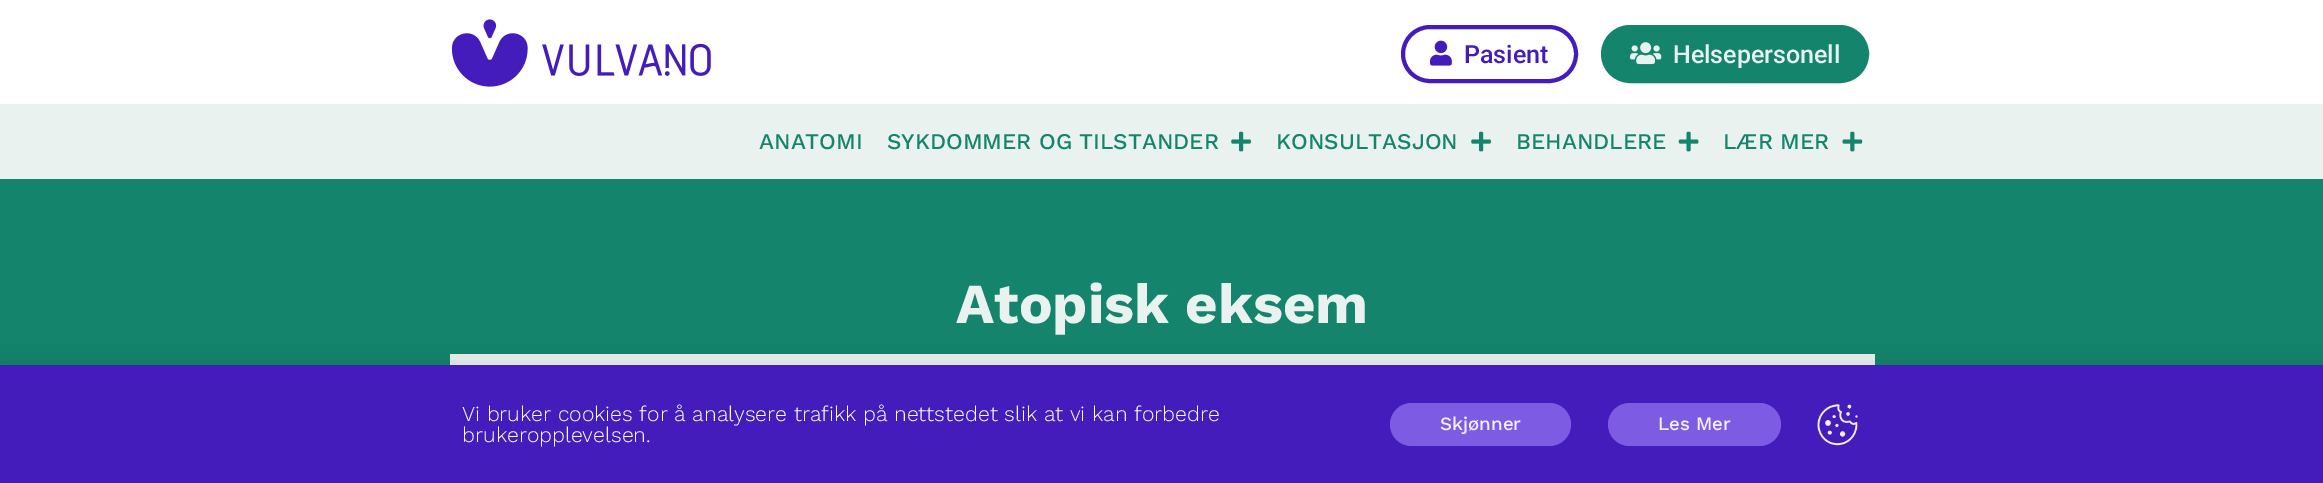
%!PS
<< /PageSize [2323 483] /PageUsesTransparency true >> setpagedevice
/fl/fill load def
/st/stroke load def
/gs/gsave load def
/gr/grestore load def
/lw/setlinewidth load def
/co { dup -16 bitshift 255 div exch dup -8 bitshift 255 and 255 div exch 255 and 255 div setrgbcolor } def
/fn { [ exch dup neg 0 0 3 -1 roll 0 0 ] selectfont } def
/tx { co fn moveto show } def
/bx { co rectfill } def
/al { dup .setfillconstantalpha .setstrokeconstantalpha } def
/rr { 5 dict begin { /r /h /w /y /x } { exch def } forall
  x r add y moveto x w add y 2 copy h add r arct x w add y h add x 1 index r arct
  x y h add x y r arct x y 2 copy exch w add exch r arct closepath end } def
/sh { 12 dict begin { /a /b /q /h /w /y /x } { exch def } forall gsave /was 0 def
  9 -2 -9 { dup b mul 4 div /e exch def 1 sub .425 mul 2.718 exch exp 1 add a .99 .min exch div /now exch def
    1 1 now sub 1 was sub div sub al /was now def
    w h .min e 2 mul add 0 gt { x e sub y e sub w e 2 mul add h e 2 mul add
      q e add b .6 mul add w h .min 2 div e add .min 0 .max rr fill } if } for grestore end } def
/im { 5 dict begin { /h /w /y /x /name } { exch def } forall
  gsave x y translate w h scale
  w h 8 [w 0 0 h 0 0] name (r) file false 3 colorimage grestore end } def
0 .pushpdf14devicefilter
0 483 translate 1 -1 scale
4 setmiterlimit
0 0 2323 483 16#FFFFFF bx
(media/1.raw) 451 19 260 68 im
16#441CBC co
4 lw
1403 27 173 54 27 rr st
(media/2.raw) 1430 40 22 26 im
16#14846C co
1603 27 264 54 27 rr gs fl gr
st
(media/3.raw) 1630 42 32 23 im
0 104 2323 75 16#EAF2EF bx
(media/4.raw) 1231 131 20 21 im
(media/4.raw) 1471 131 20 21 im
(media/5.raw) 1678 131 21 21 im
(media/6.raw) 1842 131 21 21 im
0 179 2323 186 16#14846C bx
450 354 1425 11 16#EAF2EF bx
16#000000 co
-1 371 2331 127 0 14.5 .2 sh
0 365 2323 118 16#441CBC bx
16#7D5CE3 co
1390 403 181 43 21.5 rr fl
1608 403 173 43 21.5 rr fl
(media/7.raw) 1817 404 41 42 im
(Pasient) 1464 63 /Roboto-Medium 25 16#441CBC tx
(Helsepersonell) 1673 63 /Roboto-Medium 25 16#EAF2EF tx
(ANATOMI) 759 149 /WorkSans-Medium 22.5 16#14846C tx
(SYKDOMMER OG TILSTANDER) 887 149 /WorkSans-Medium 22.5 16#14846C tx
(KONSULTASJON) 1276 149 /WorkSans-Medium 22.5 16#14846C tx
(BEHANDLERE) 1516 149 /WorkSans-Medium 22.5 16#14846C tx
(LÆR MER) 1723 149 /WorkSans-Medium 22.5 16#14846C tx
(Atopisk eksem) 956 323 /WorkSans-Bold 56.25 16#EAF2EF tx
(Vi bruker cookies for å analysere trafikk på nettstedet slik at vi kan forbedre) 462 421 /WorkSans-Light 21.25 16#FFFFFF tx
(brukeropplevelsen.) 462 442 /WorkSans-Light 21.25 16#FFFFFF tx
(Skjønner) 1440 430 /WorkSans-Medium 18.75 16#F6EFFD tx
(Les Mer) 1658 430 /WorkSans-Medium 18.75 16#F6EFFD tx
.poppdf14devicefilter showpage
